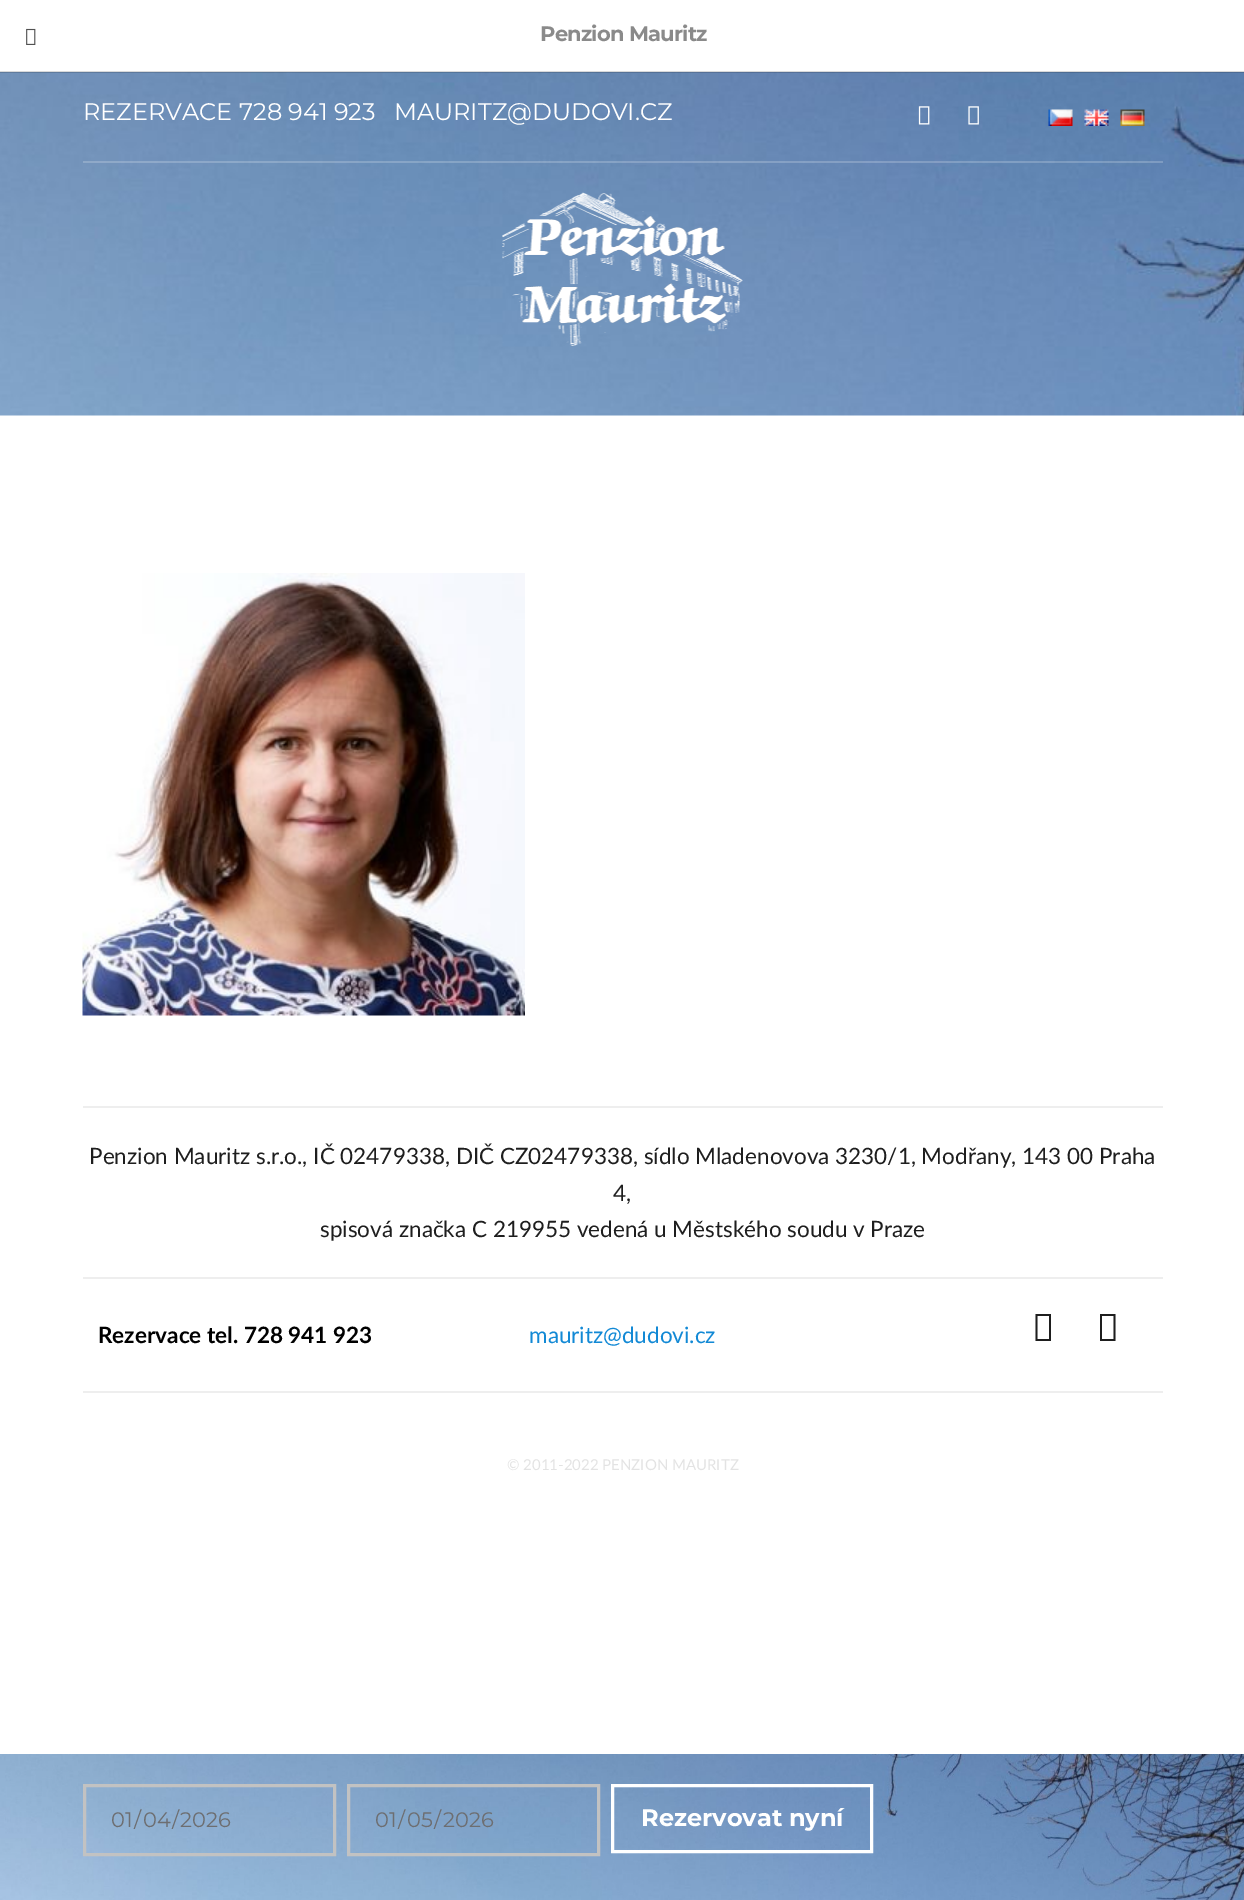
%!PS
<< /PageSize [1244 1900] /PageUsesTransparency true >> setpagedevice
/mt/moveto load def
/li/lineto load def
/cp/closepath load def
/fl/fill load def
/lw/setlinewidth load def
/co { dup -16 bitshift 255 div exch dup -8 bitshift 255 and 255 div exch 255 and 255 div setrgbcolor } def
/fn { [ exch dup neg 0 0 3 -1 roll 0 0 ] selectfont } def
/tx { co fn moveto show } def
/bx { co rectfill } def
/al { dup .setfillconstantalpha .setstrokeconstantalpha } def
/im { 5 dict begin { /h /w /y /x /name } { exch def } forall
  gsave x y translate w h scale
  w h 8 [w 0 0 h 0 0] name (r) file false 3 colorimage grestore end } def
0 .pushpdf14devicefilter
0 1900 translate 1 -1 scale
4 setmiterlimit
0 0 1244 1900 16#FFFFFF bx
(media/2.raw) 0 72 1244 344 im
0.15 al
0 71 1244 2 16#000000 bx
1 al
(media/1.raw) 26 28 10 17 im
(media/3.raw) 918 106 12 19 im
(media/4.raw) 968 106 11 19 im
(media/5.raw) 1048 109 25 17 im
(media/6.raw) 1084 109 25 17 im
(media/7.raw) 1120 109 25 17 im
0.2 al
83 161 1080 2 16#FFFFFF bx
1 al
(media/8.raw) 502 192 241 154 im
(media/9.raw) 82 573 443 443 im
83 1106 1080 2 16#EEEEEE bx
83 1277 1080 2 16#EEEEEE bx
16#1E1E1E co
1035.5 1341 mt 1035.5 1314 li 1051 1314 li 1051 1341 li cp 1037.5 1339 mt 1049 1339 li 1049 1316 li 1037.5 1316 li cp fl
1100 1341 mt 1100 1314 li 1115.5 1314 li 1115.5 1341 li cp 1102 1339 mt 1113.5 1339 li 1113.5 1316 li 1102 1316 li cp fl
83 1391 1080 2 16#EEEEEE bx
(media/10.raw) 0 1754 1244 146 im
16#C2C2C2 co
3 lw
84.5 1785.5 250 69 rectstroke
348.5 1785.5 250 69 rectstroke
16#FFFFFF co
612.5 1785.5 259 66 rectstroke
/Montserrat-Bold 21 fn
16#8A8A8A co
540 41 mt -.8 0 (Penzion Mauritz) ashow
(REZERVACE 728 941 923) 83 120 /Montserrat-Regular 24 16#FFFFFF tx
(MAURITZ@DUDOVI.CZ) 394 120 /Montserrat-Regular 24 16#FFFFFF tx
(Penzion Mauritz s.r.o., IČ 02479338, DIČ CZ02479338, sídlo Mladenovova 3230/1, Modřany, 143 00 Praha) 89 1164 /Lato-Regular 22.5 16#1E1E1E tx
(4,) 613 1201 /Lato-Regular 22.5 16#1E1E1E tx
(spisová značka C 219955 vedená u Městského soudu v Praze) 320 1237 /Lato-Regular 22.5 16#1E1E1E tx
(Rezervace tel. 728 941 923) 98 1343 /Lato-Bold 22.5 16#000000 tx
(mauritz@dudovi.cz) 529 1343 /Lato-Regular 22.5 16#1289D5 tx
(© 2011-2022 PENZION MAURITZ) 507 1470 /Lato-Regular 15 16#E3E3E3 tx
(01) 111 1827 /Montserrat-Regular 21 16#6D6E71 tx
(/) 134 1827 /Montserrat-Regular 21 16#6D6E71 tx
(04) 143 1827 /Montserrat-Regular 21 16#6D6E71 tx
(/) 172 1827 /Montserrat-Regular 21 16#6D6E71 tx
(2026) 180 1827 /Montserrat-Regular 21 16#6D6E71 tx
(01) 375 1827 /Montserrat-Regular 21 16#6D6E71 tx
(/) 398 1827 /Montserrat-Regular 21 16#6D6E71 tx
(05) 407 1827 /Montserrat-Regular 21 16#6D6E71 tx
(/) 434 1827 /Montserrat-Regular 21 16#6D6E71 tx
(2026) 443 1827 /Montserrat-Regular 21 16#6D6E71 tx
(Rezervovat nyní) 641 1826 /Montserrat-Bold 24 16#FFFFFF tx
.poppdf14devicefilter showpage
